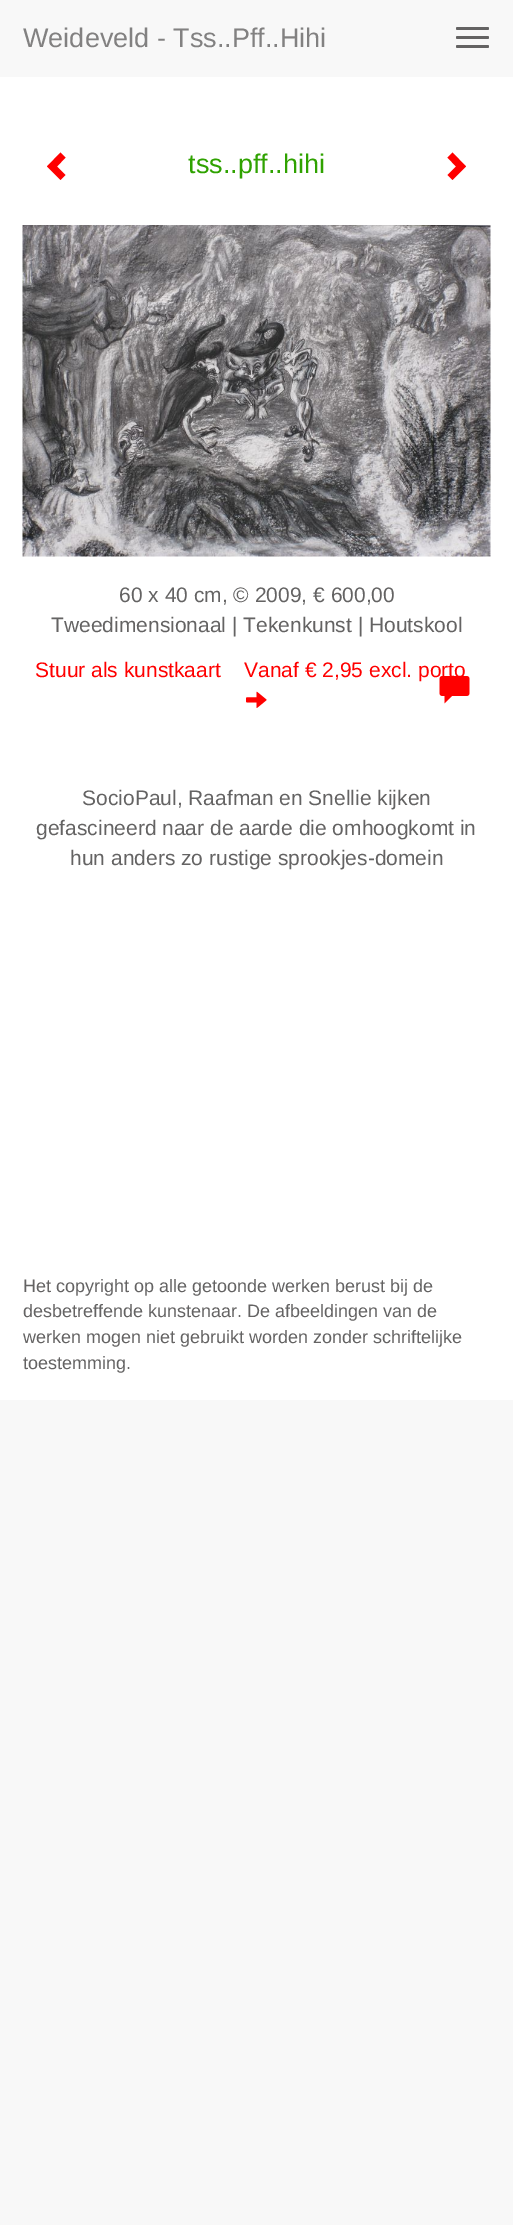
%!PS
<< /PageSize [513 2225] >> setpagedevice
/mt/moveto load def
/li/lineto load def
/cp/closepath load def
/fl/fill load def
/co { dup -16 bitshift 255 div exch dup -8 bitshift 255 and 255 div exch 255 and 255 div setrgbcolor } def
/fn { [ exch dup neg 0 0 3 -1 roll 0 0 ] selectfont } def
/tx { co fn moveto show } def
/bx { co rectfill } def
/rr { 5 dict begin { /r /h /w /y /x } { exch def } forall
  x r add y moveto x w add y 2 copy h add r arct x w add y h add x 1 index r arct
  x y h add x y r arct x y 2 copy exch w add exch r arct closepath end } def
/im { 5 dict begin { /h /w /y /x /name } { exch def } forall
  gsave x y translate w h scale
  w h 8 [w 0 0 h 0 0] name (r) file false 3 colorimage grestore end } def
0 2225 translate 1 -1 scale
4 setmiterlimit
0 0 513 2225 16#F8F8F8 bx
0 77 513 1323 16#FFFFFF bx
16#646363 co
456 27 33 3 1.5 rr fl
456 36 33 3 1.5 rr fl
456 45 33 3 1.5 rr fl
16#FF0000 co
65.5 157.5 mt 57 166.5 li 65.5 175 li 60.5 180 li 47 166.5 li 60.5 152.5 li cp fl
466 166.5 mt 452.5 180 li 447.5 175 li 456 166.5 li 447.5 157.5 li 452.5 152.5 li cp fl
(media/1.raw) 22 225 469 332 im
(media/2.raw) 246 691 21 17 im
(Weideveld - Tss..Pff..Hihi) 23 47 /LiberationSans-Regular 27 16#828181 tx
(tss..pff..hihi) 188 173 /LiberationSans-Regular 27 16#2FA200 tx
(60 x 40 cm, © 2009, € 600,00) 119 602 /LiberationSans-Regular 21 16#646363 tx
(Tweedimensionaal | Tekenkunst | Houtskool) 51 632 /LiberationSans-Regular 21 16#646363 tx
(Stuur als kunstkaart) 35 677 /LiberationSans-Regular 21 16#FF0000 tx
(Vanaf € 2,95 excl. porto) 244 677 /LiberationSans-Regular 21 16#FF0000 tx
(media/3.raw) 439 676 31 28 im
(SocioPaul, Raafman en Snellie kijken) 82 805 /LiberationSans-Regular 21 16#646363 tx
(gefascineerd naar de aarde die omhoogkomt in) 36 835 /LiberationSans-Regular 21 16#646363 tx
(hun anders zo rustige sprookjes-domein) 70 865 /LiberationSans-Regular 21 16#646363 tx
(Het copyright op alle getoonde werken berust bij de) 23 1292 /LiberationSans-Regular 18 16#646363 tx
(desbetreffende kunstenaar. De afbeeldingen van de) 23 1317 /LiberationSans-Regular 18 16#646363 tx
(werken mogen niet gebruikt worden zonder schriftelijke) 23 1343 /LiberationSans-Regular 18 16#646363 tx
(toestemming.) 23 1369 /LiberationSans-Regular 18 16#646363 tx
showpage
